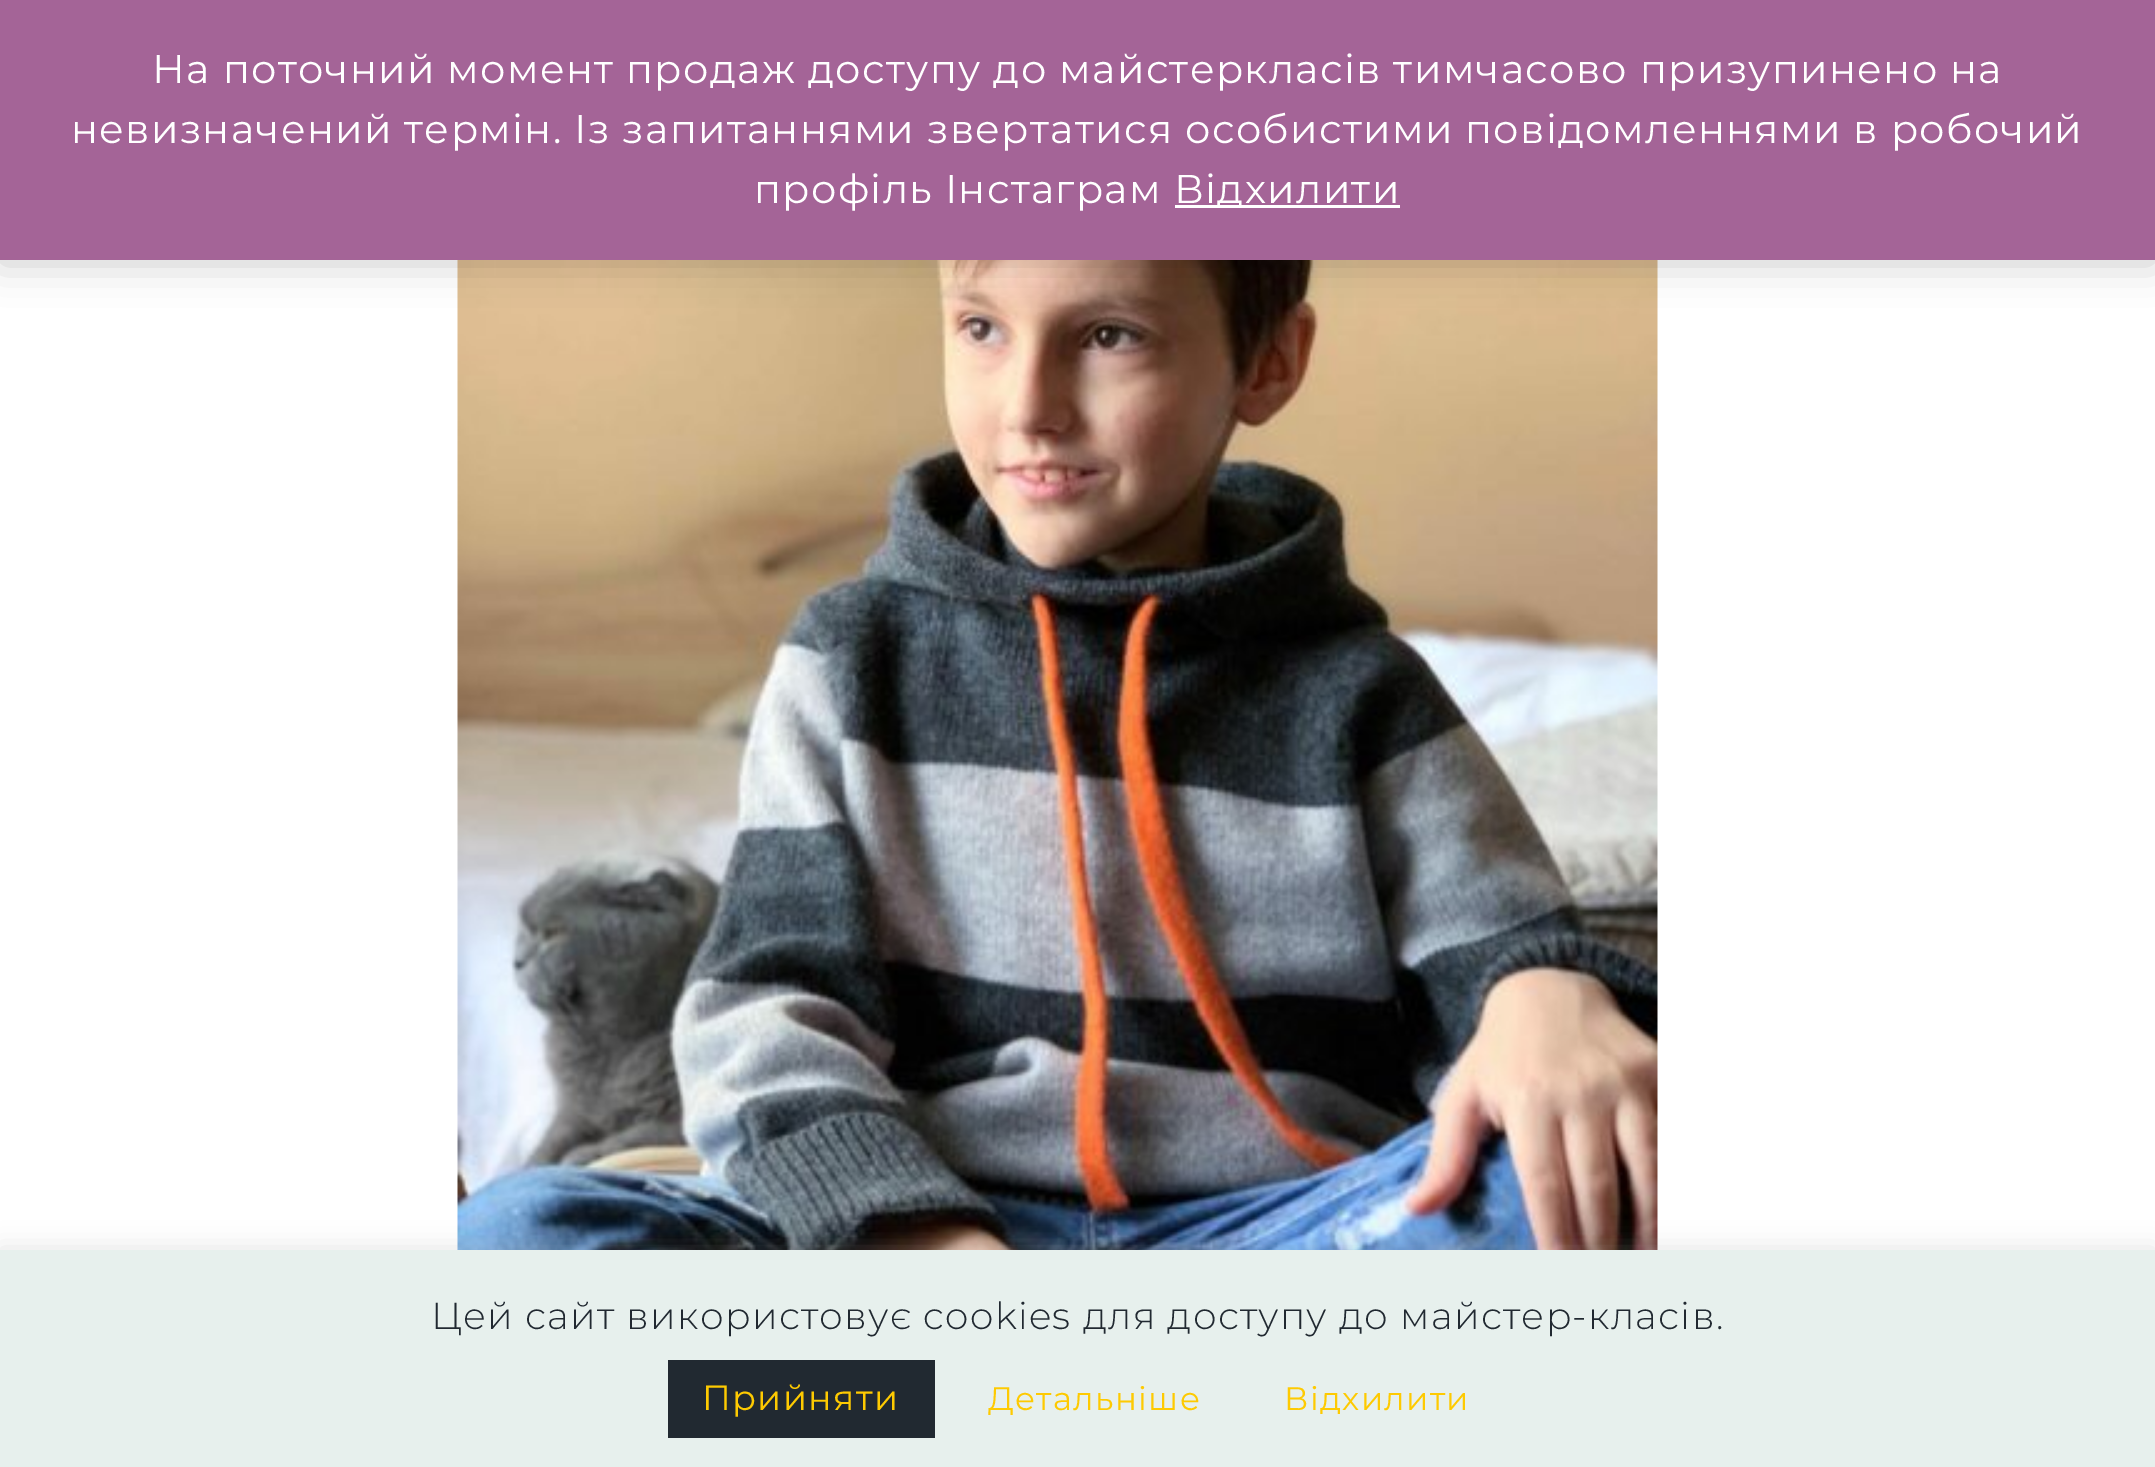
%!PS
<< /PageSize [2155 1467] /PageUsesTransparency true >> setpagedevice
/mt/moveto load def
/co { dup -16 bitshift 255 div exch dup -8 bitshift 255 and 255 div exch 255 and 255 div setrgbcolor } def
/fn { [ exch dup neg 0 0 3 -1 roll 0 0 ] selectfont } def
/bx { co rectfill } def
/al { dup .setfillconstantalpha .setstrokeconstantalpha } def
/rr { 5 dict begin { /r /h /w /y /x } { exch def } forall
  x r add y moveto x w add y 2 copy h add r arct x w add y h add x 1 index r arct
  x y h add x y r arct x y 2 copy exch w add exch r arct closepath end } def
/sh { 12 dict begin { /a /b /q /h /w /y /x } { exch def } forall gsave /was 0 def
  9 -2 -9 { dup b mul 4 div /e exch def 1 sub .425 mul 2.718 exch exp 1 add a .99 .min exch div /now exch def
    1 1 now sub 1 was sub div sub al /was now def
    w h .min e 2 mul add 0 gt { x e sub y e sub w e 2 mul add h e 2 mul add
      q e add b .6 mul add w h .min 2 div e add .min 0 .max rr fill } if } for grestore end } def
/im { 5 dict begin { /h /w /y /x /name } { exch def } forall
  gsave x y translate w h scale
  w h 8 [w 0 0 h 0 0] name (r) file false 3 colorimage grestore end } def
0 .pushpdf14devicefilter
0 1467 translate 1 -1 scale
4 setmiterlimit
0 0 2155 1467 16#FFFFFF bx
(media/1.raw) 457 260 1201 990 im
16#000000 co
0 3 2155 260 0 20 .2 sh
0 0 2155 260 16#A46497 bx
1175 205 225 3 16#FFFFFF bx
16#ACABAB co
0 1248 2155 217 0 12.5 .3 sh
0 1250 2155 217 16#E7F0ED bx
668 1360 267 78 16#212931 bx
/Montserrat-Regular 40 fn
16#FFFFFF co
152 83 mt 1.3 0 (На поточний момент продаж доступу до майстеркласів тимчасово призупинено на) ashow
71 143 mt 1.3 0 (невизначений термін. Із запитаннями звертатися особистими повідомленнями в робочий) ashow
754 203 mt 1.3 0 (профіль Інстаграм) ashow
1174 203 mt 1.3 0 (Відхилити) ashow
/Montserrat-Light 37.5 fn
16#212931 co
431 1329 mt 1.3 0 (Цей сайт використовує cookies для доступу до майстер-класів.) ashow
/Montserrat-Regular 35 fn
16#FECA01 co
702 1410 mt 1.3 0 (Прийняти) ashow
/Montserrat-Regular 32.5 fn
988 1410 mt 1.3 0 (Детальніше) ashow
1284 1410 mt 1.3 0 (Відхилити) ashow
.poppdf14devicefilter showpage
